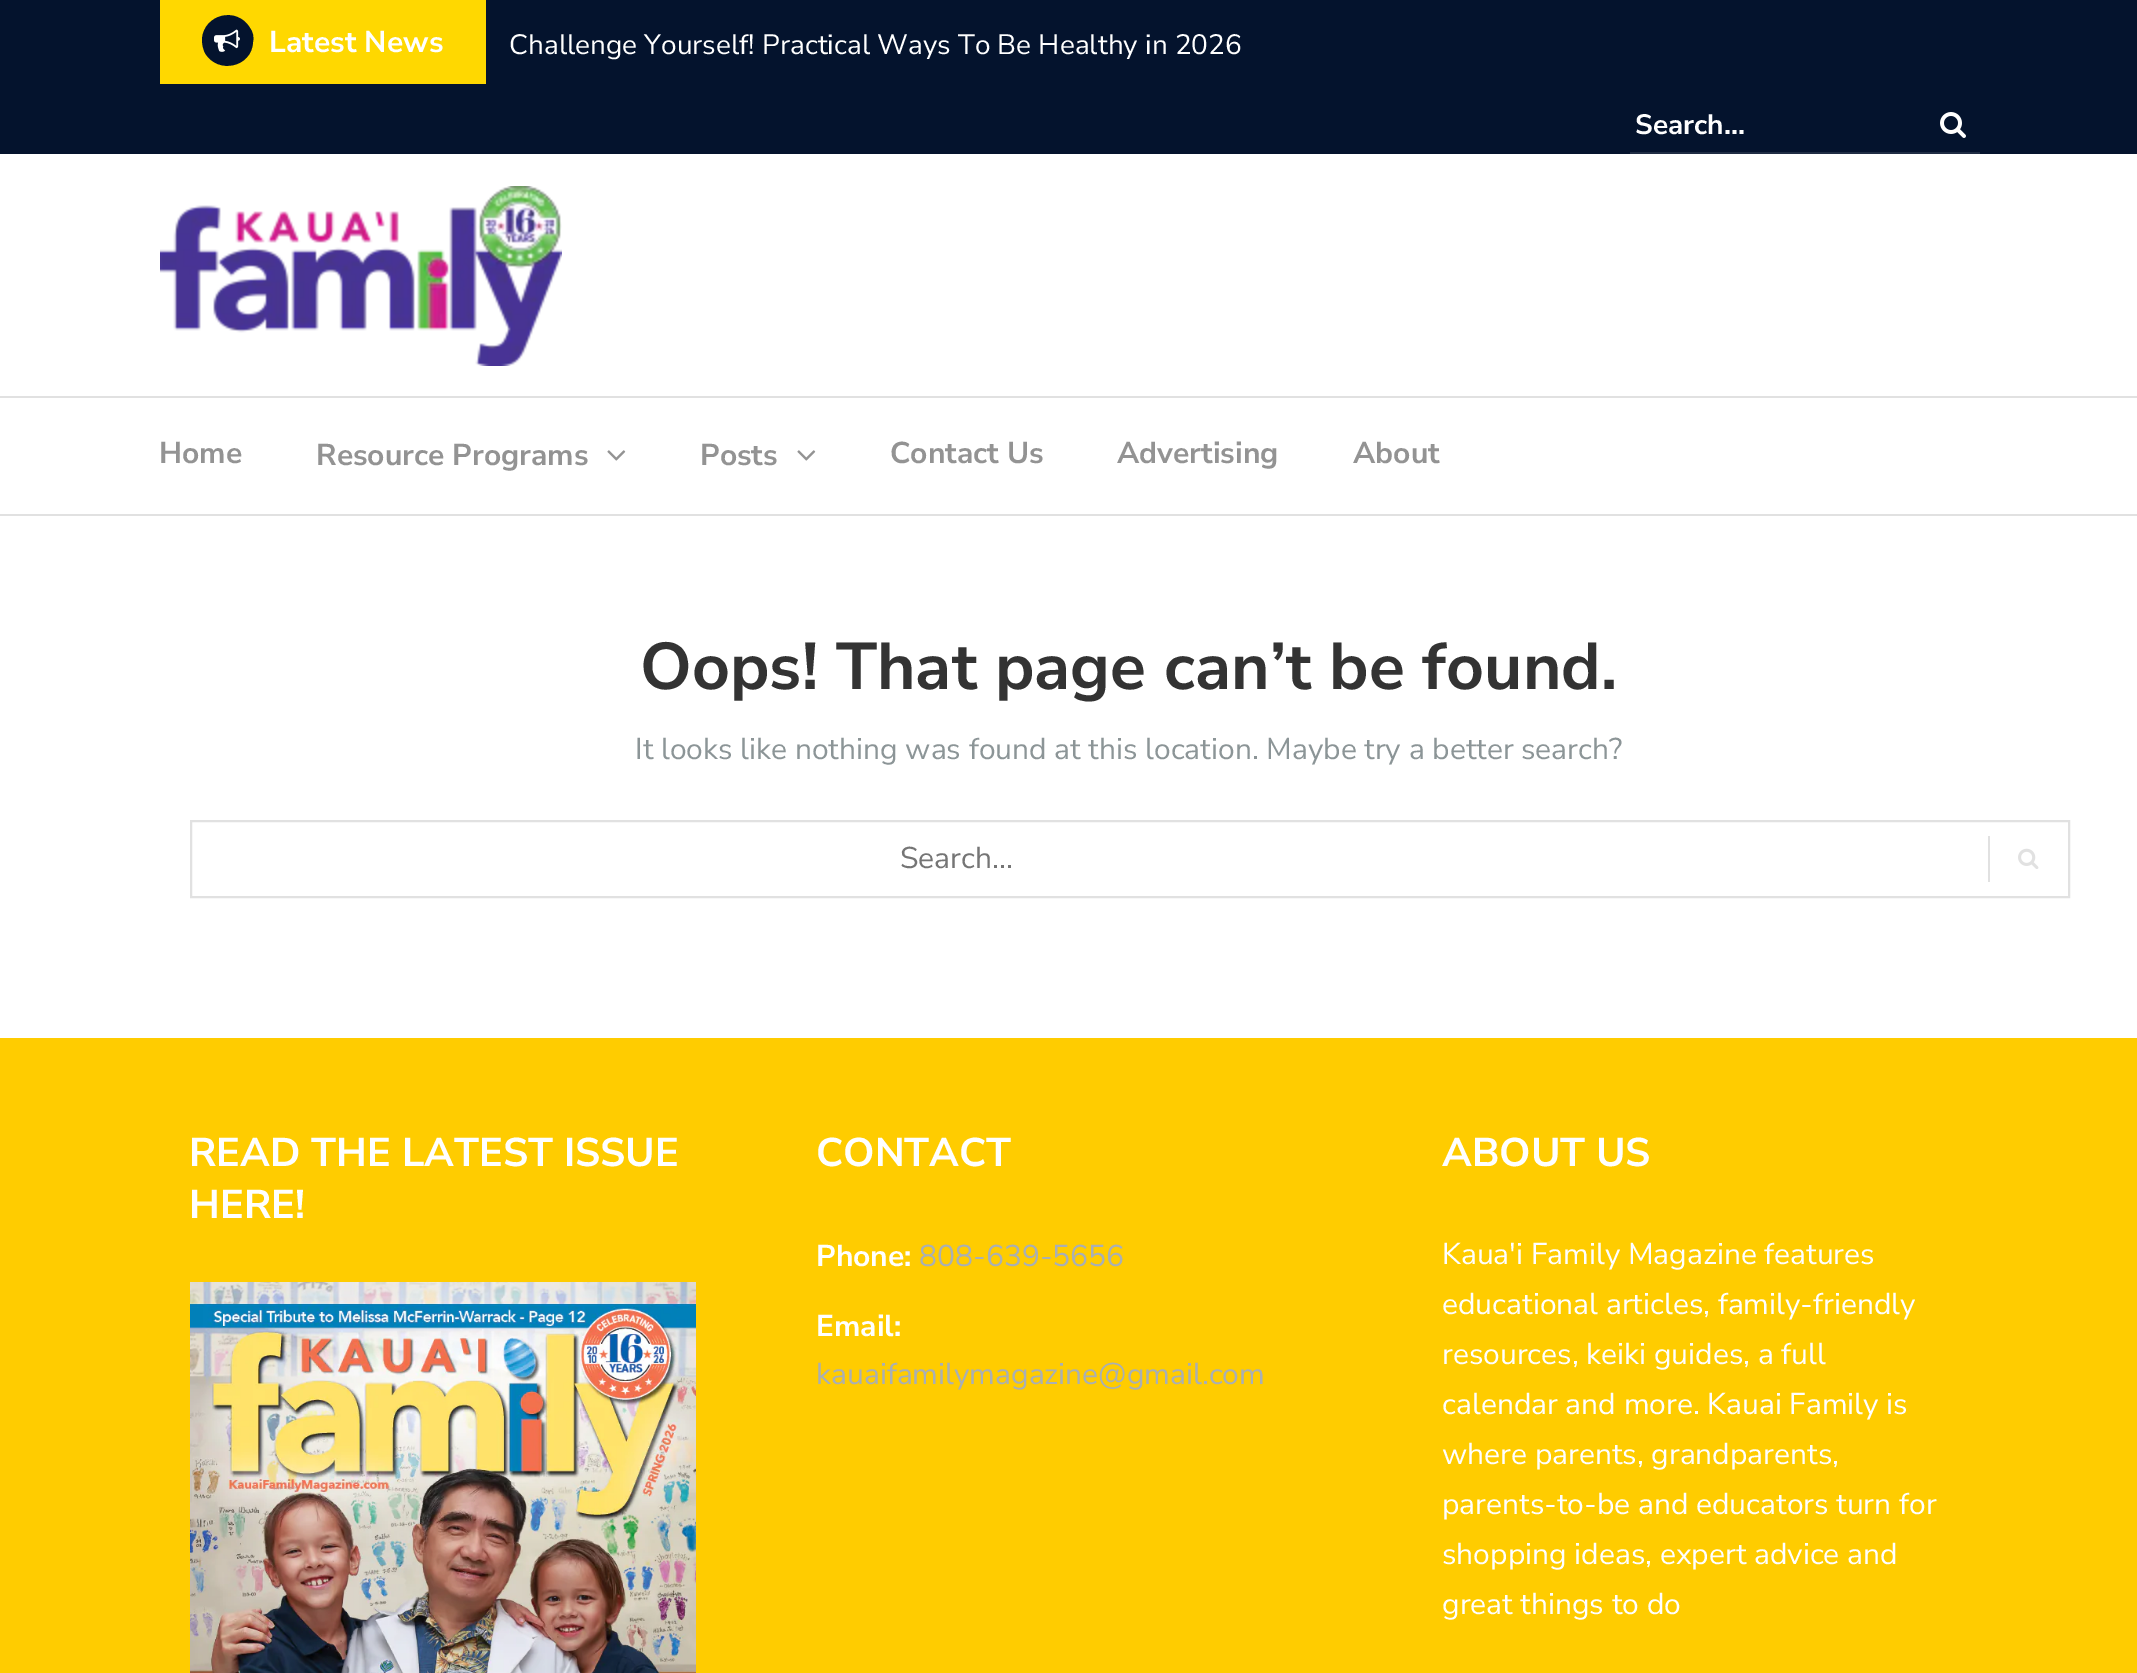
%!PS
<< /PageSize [2137 1673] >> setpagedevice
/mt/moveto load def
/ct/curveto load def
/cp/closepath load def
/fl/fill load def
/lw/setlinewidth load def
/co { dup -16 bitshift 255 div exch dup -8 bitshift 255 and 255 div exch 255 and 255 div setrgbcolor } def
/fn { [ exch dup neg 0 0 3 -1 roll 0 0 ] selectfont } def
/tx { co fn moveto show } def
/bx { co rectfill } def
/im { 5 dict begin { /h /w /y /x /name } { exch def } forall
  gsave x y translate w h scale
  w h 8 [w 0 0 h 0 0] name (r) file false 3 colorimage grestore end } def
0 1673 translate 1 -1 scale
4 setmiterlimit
0 0 2137 1673 16#FFFFFF bx
0 0 2137 154 16#04132D bx
160 0 326 84 16#FFD800 bx
16#04132D co
250 28 mt 253 32 254 37 253 42 ct 252 67 218 75 205 53 ct 203 49 202 44 202 39 ct 204 14 237 6 250 28 ct cp fl
(media/1.raw) 214 29 26 23 im
1630 152 350 2 16#202D44 bx
(media/2.raw) 1940 112 26 26 im
(media/3.raw) 160 186 402 180 im
0 396 2137 2 16#E1E1E1 bx
0 514 2137 2 16#E1E1E1 bx
(media/4.raw) 607 450 19 11 im
(media/4.raw) 797 450 19 11 im
2 lw
191 821 1878 76 rectstroke
1988 836 2 46 16#E1E1E1 bx
(media/5.raw) 2018 848 21 21 im
0 1038 2137 635 16#FFCC00 bx
(media/6.raw) 190 1282 506 391 im
(Latest News) 269 52 /NunitoSans-Bold 30 16#FFFFFF tx
(Challenge Yourself! Practical Ways To Be Healthy in 2026) 509 54 /NunitoSans-Regular 28 16#FFFFFF tx
(Search...) 1635 134 /NunitoSans-Bold 28 16#FFFFFF tx
(Home) 159 463 /NunitoSans-Bold 30 16#939393 tx
(Resource Programs) 316 465 /NunitoSans-Bold 30 16#939393 tx
(Posts) 700 465 /NunitoSans-Bold 30 16#939393 tx
(Contact Us) 890 463 /NunitoSans-Bold 30 16#939393 tx
(Advertising) 1117 463 /NunitoSans-Bold 30 16#939393 tx
(About) 1353 463 /NunitoSans-Bold 30 16#939393 tx
(Oops! That page can’t be found.) 640 689 /NunitoSans-Bold 66 16#333333 tx
(It looks like nothing was found at this location. Maybe try a better search?) 635 759 /NunitoSans-Regular 30 16#8C9597 tx
(Search...) 900 868 /NunitoSans-Regular 30 16#757575 tx
(READ THE LATEST ISSUE) 189 1166 /NunitoSans-Bold 40 16#FFFFFF tx
(HERE!) 189 1218 /NunitoSans-Bold 40 16#FFFFFF tx
(CONTACT) 816 1166 /NunitoSans-Bold 40 16#FFFFFF tx
(Phone:) 816 1266 /NunitoSans-Bold 30 16#FFFFFF tx
(808-639-5656) 919 1266 /NunitoSans-Regular 30 16#A9AFB5 tx
(Email:) 816 1336 /NunitoSans-Bold 30 16#FFFFFF tx
(kauaifamilymagazine@gmail.com) 816 1384 /NunitoSans-Regular 30 16#A9AFB5 tx
(ABOUT US) 1442 1166 /NunitoSans-Bold 40 16#FFFFFF tx
(Kaua'i Family Magazine features) 1442 1264 /NunitoSans-Regular 30 16#FFFFFF tx
(educational articles, family-friendly) 1442 1314 /NunitoSans-Regular 30 16#FFFFFF tx
(resources, keiki guides, a full) 1442 1364 /NunitoSans-Regular 30 16#FFFFFF tx
(calendar and more. Kauai Family is) 1442 1414 /NunitoSans-Regular 30 16#FFFFFF tx
(where parents, grandparents,) 1442 1464 /NunitoSans-Regular 30 16#FFFFFF tx
(parents-to-be and educators turn for) 1442 1514 /NunitoSans-Regular 30 16#FFFFFF tx
(shopping ideas, expert advice and) 1442 1564 /NunitoSans-Regular 30 16#FFFFFF tx
(great things to do) 1442 1614 /NunitoSans-Regular 30 16#FFFFFF tx
showpage
